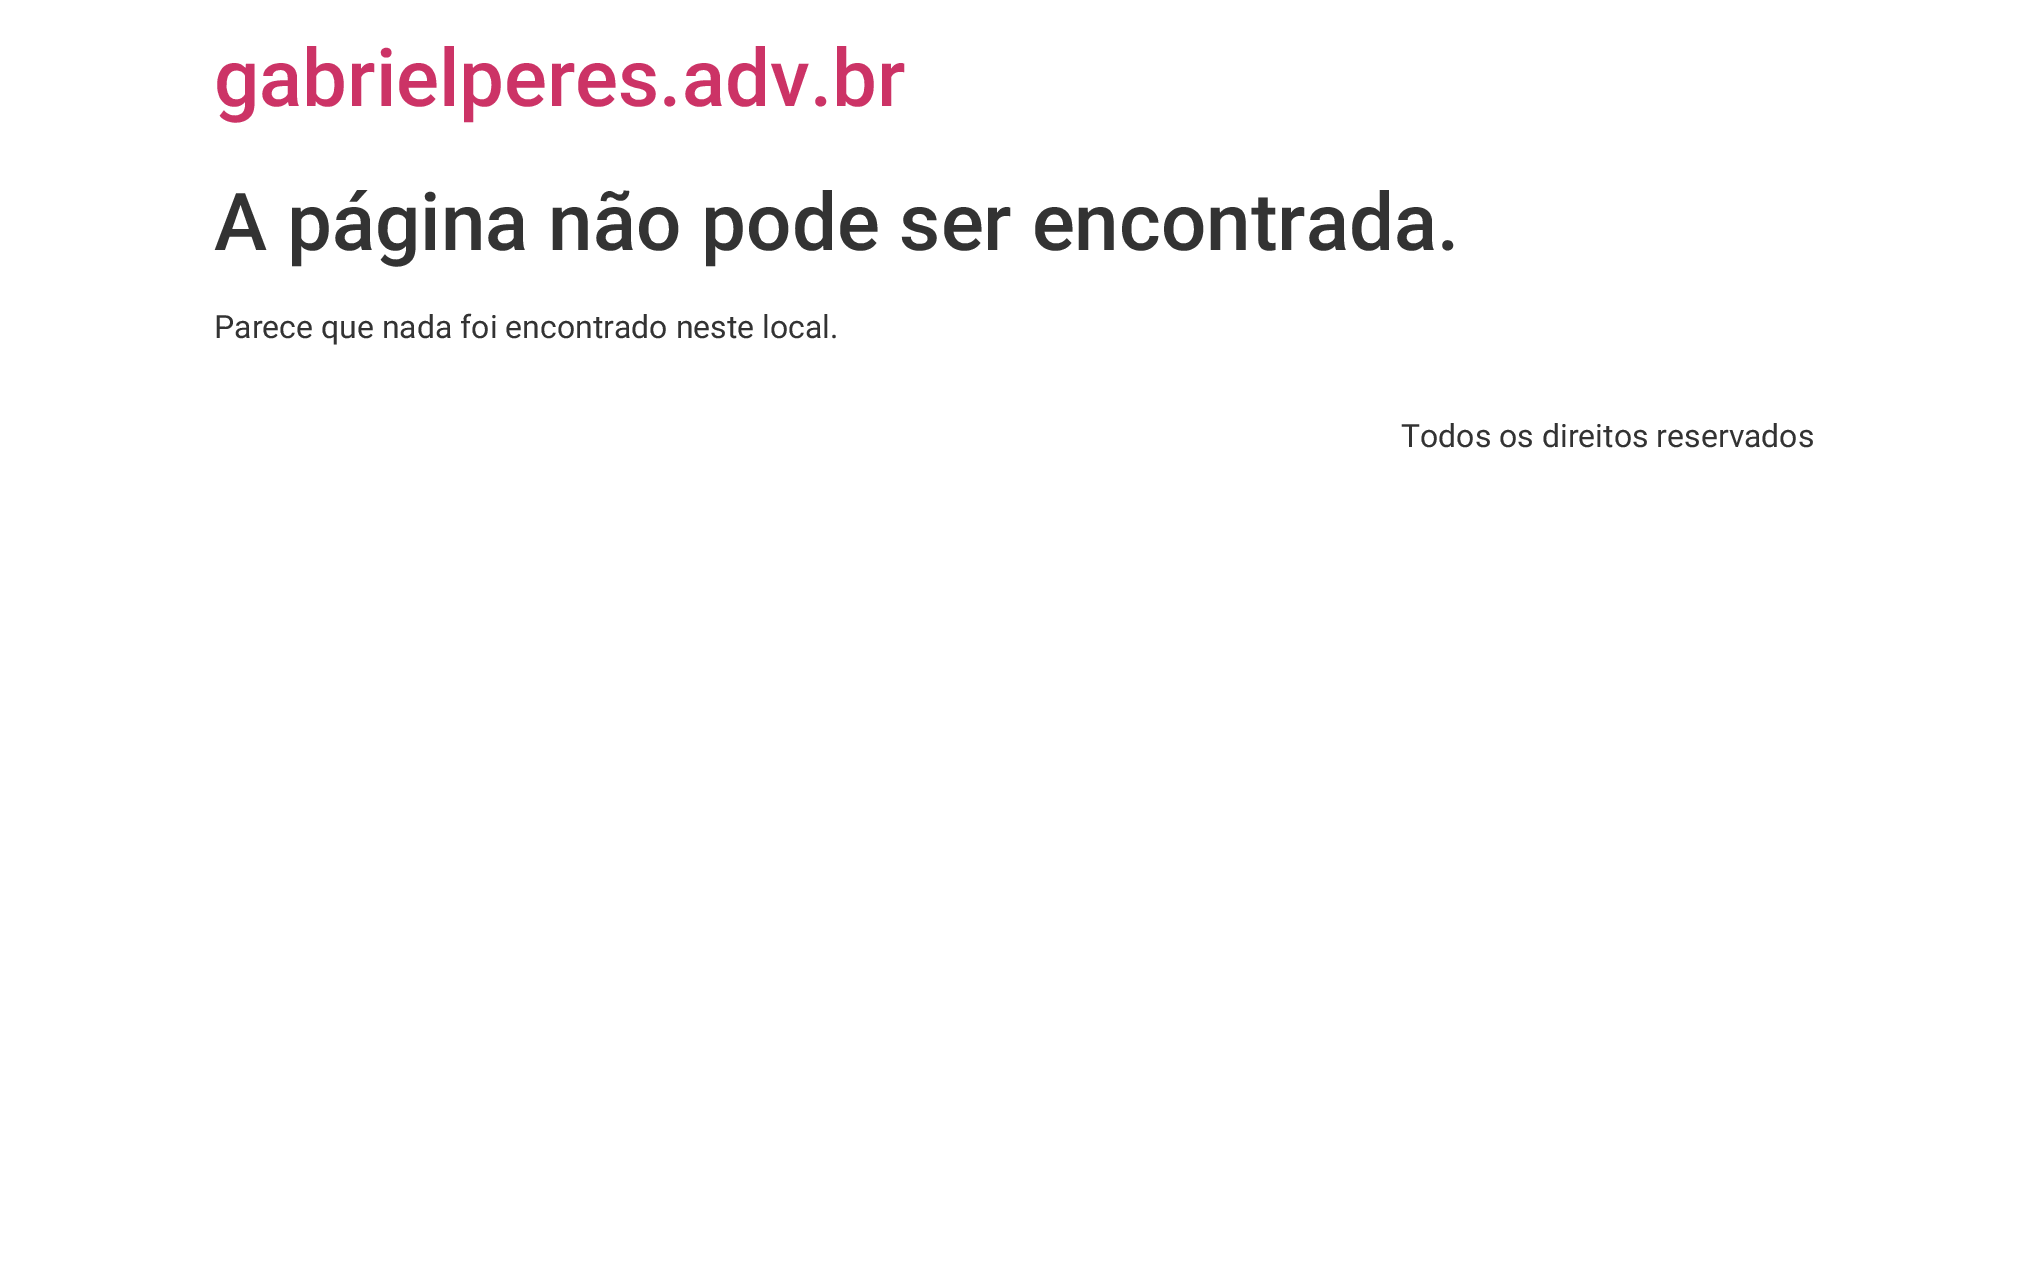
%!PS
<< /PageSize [2028 1271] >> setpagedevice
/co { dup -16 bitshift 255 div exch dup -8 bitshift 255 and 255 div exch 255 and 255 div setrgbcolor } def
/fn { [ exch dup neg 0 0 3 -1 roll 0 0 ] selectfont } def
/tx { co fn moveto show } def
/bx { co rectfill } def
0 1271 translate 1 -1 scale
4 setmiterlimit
0 0 2028 1271 16#FFFFFF bx
(gabrielperes.adv.br) 214 106 /Roboto-Medium 80 16#CC3366 tx
(A página não pode ser encontrada.) 214 250 /Roboto-Medium 80 16#333333 tx
(Parece que nada foi encontrado neste local.) 214 338 /Roboto-Regular 32 16#333333 tx
(Todos os direitos reservados) 1401 447 /Roboto-Regular 32 16#333333 tx
showpage
